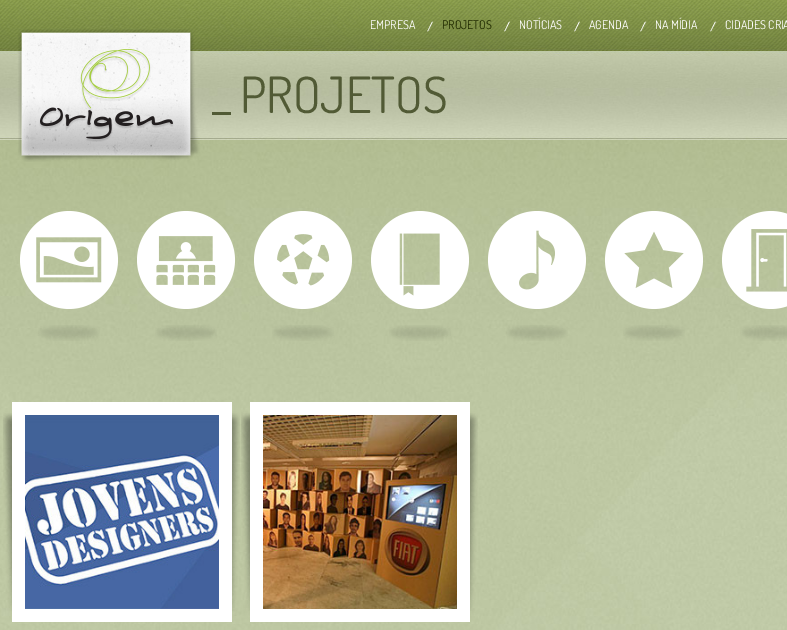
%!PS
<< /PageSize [787 630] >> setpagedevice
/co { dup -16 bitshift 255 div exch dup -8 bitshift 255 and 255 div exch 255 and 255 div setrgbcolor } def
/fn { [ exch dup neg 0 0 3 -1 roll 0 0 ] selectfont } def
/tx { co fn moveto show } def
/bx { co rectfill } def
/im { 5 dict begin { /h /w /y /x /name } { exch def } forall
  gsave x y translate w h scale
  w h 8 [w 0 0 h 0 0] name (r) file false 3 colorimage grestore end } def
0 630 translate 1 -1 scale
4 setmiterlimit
0 0 787 630 16#FFFFFF bx
(media/1.raw) 0 140 787 490 im
(media/2.raw) 0 0 787 140 im
(media/3.raw) 427 21 7 11 im
(media/4.raw) 504 21 6 11 im
(media/5.raw) 574 21 6 11 im
(media/6.raw) 640 21 7 11 im
(media/7.raw) 710 21 7 11 im
(media/8.raw) 18 29 182 133 im
212 112 19 3 16#515A35 bx
(media/9.raw) 20 211 98 98 im
(media/10.raw) 38 325 62 16 im
(media/11.raw) 137 211 98 98 im
(media/12.raw) 155 325 62 16 im
(media/13.raw) 254 211 98 98 im
(media/14.raw) 272 325 62 16 im
(media/15.raw) 371 211 98 98 im
(media/16.raw) 389 325 62 16 im
(media/17.raw) 488 211 98 98 im
(media/18.raw) 506 325 62 16 im
(media/19.raw) 605 211 98 98 im
(media/20.raw) 623 325 62 16 im
(media/21.raw) 722 211 65 98 im
(media/22.raw) 740 325 47 16 im
(media/23.raw) 3 402 237 220 im
(media/24.raw) 3 413 237 198 im
(media/25.raw) 25 415 194 194 im
(media/26.raw) 241 402 237 220 im
(media/27.raw) 241 413 237 198 im
(media/28.raw) 263 415 194 194 im
(EMPRESA) 370 29 /Dosis-Regular 12 16#FFFFFF tx
(PROJETOS) 442 29 /Dosis-Regular 12 16#202A00 tx
(NOTÍCIAS) 519 29 /Dosis-Regular 12 16#FFFFFF tx
(AGENDA) 589 29 /Dosis-Regular 12 16#FFFFFF tx
(NA MÍDIA) 655 29 /Dosis-Regular 12 16#FFFFFF tx
(CIDADES CRIA) 725 29 /Dosis-Regular 12 16#FFFFFF tx
(PROJETOS) 240 113 /Dosis-Regular 50 16#515A35 tx
showpage
